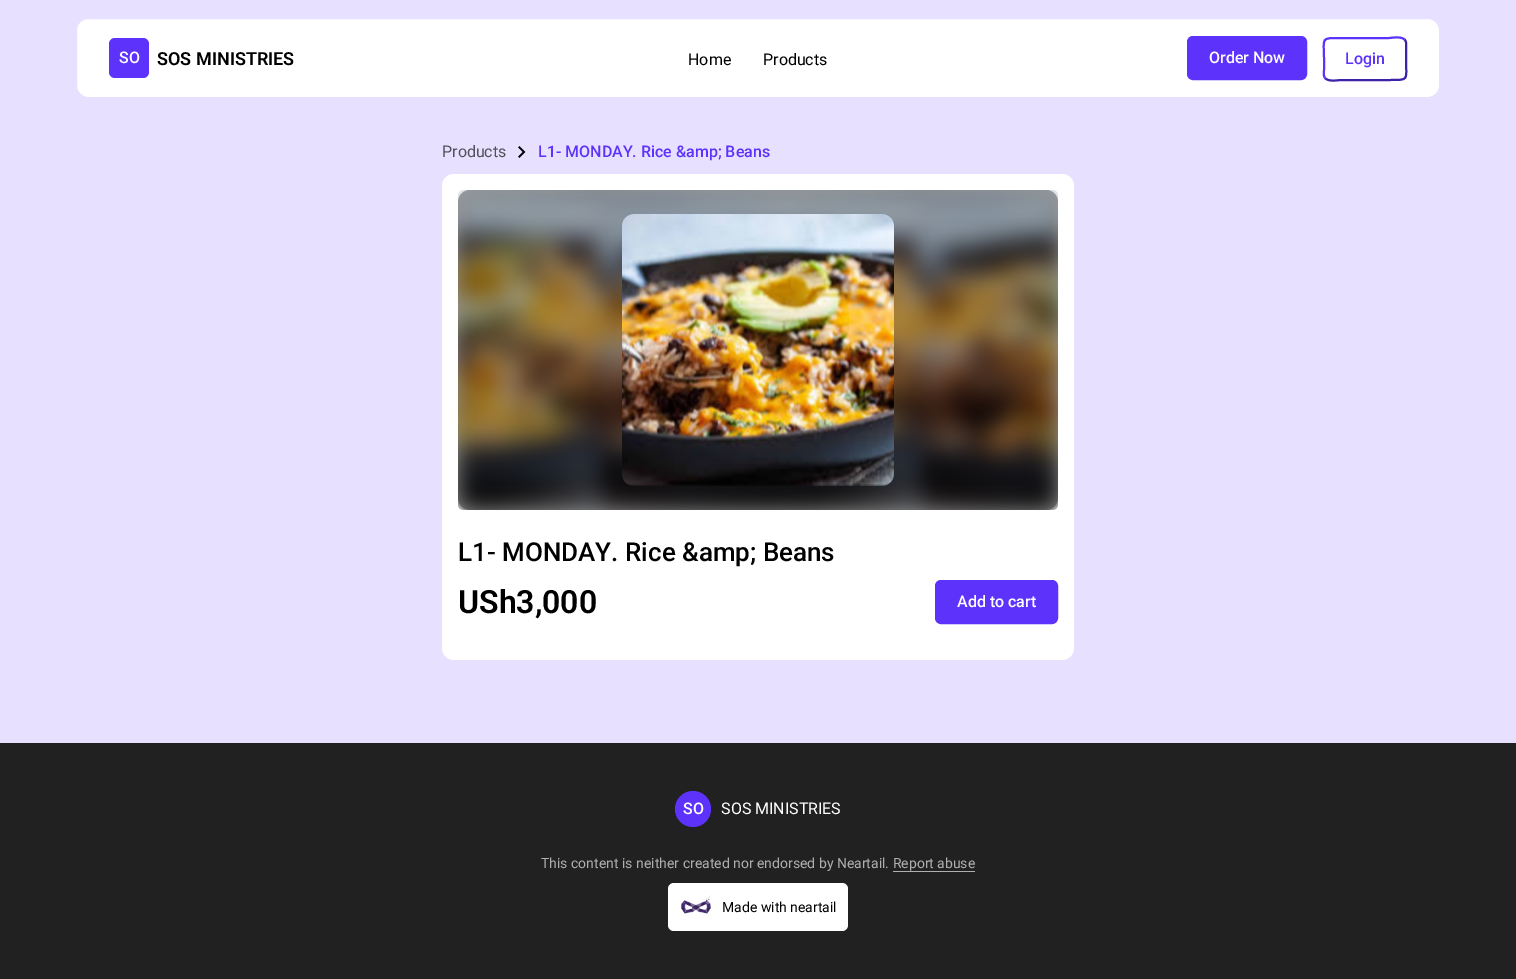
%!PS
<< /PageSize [1516 979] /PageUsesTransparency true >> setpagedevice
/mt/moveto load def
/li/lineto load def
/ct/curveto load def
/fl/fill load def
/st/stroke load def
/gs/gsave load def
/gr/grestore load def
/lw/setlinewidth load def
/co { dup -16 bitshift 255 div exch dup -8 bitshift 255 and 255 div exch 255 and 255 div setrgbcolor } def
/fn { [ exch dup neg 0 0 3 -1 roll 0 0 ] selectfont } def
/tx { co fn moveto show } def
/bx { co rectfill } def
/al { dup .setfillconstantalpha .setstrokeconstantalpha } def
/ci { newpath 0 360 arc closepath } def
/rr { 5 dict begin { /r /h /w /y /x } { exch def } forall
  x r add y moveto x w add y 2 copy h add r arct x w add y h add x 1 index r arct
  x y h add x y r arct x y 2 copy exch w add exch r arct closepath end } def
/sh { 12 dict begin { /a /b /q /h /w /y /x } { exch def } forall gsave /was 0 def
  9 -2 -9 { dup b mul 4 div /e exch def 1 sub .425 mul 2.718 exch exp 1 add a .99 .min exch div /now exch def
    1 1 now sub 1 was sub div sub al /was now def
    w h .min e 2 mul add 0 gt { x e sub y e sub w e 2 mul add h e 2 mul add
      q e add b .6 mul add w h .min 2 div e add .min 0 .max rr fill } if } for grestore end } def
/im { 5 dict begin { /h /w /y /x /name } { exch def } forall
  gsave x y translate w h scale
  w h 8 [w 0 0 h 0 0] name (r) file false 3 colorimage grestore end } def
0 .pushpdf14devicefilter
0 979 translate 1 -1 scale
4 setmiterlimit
0 0 1516 979 16#E7E0FE bx
16#FFFFFF co
76.5 18.5 1363 79 11.5 rr gs fl gr
16#E7E0FE co
st
16#5D33FB co
109 38 40 40 6 rr fl
1188 37 118 42 5 rr gs fl gr
2 lw
st
16#3E22A7 co
1404.5 39.5 mt 1407 41.5 1406 45.5 1406 48.5 ct 1406 59 li 1406 80.5 1410 80 1389 80 ct 1341 80 li 1339.5 80 1329 82 1325.5 78.5 ct st
16#5D33FB co
1325.5 78.5 mt 1323 76.5 1324 72.5 1324 69.5 ct 1324 59 li 1324 37.5 1320 38 1341 38 ct 1389 38 li 1390.5 38 1401 36 1404.5 39.5 ct st
(media/1.raw) 518 146 8 12 im
16#FFFFFF co
442 174 632 486 12 rr fl
gs
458 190 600 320 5 rr clip newpath
16#000000 co
458 190 600 320 6 12 .33 sh
gr
(media/2.raw) 458 190 600 320 im
0.33 al
16#000000 co
458 190 600 320 12 rr fl
1 al
(media/3.raw) 622 214 272 272 im
16#5D33FB co
936 581 121 42 5 rr gs fl gr
st
0 743 1516 236 16#212121 bx
16#5D33FB co
693 809 18 ci fl
893 871 82 1 16#AFAFAF bx
16#FFFFFF co
668 883 180 48 6 rr fl
(media/4.raw) 681 895 30 19 im
(SO) 119 63 /Roboto-Medium 16 16#FFFFFF tx
(SOS MINISTRIES) 157 65 /Roboto-SemiBold 18 16#000000 tx
(Home) 688 65 /Roboto-Regular 16 16#000000 tx
(Products) 763 65 /Roboto-Regular 16 16#000000 tx
(Order Now) 1209 63 /Roboto-Medium 16 16#FFFFFF tx
(Login) 1345 64 /Roboto-Medium 16 16#5D33FB tx
(Products) 442 157 /Roboto-Regular 16 16#53515B tx
(L1- MONDAY. Rice &amp; Beans) 538 157 /Roboto-Medium 16 16#5D33FB tx
(L1- MONDAY. Rice &amp; Beans) 458 561 /Roboto-Medium 26 16#000000 tx
(USh3,000) 458 613 /Roboto-SemiBold 32 16#000000 tx
(Add to cart) 957 607 /Roboto-Medium 16 16#FFFFFF tx
(SO) 683 814 /Roboto-Medium 16 16#FFFFFF tx
(SOS MINISTRIES) 721 814 /Roboto-Regular 16 16#FFFFFF tx
(This content is neither created nor endorsed by Neartail. Report abuse) 541 868 /Roboto-Regular 14 16#AFAFAF tx
(Made with neartail) 722 912 /Roboto-Regular 14 16#000000 tx
.poppdf14devicefilter showpage
